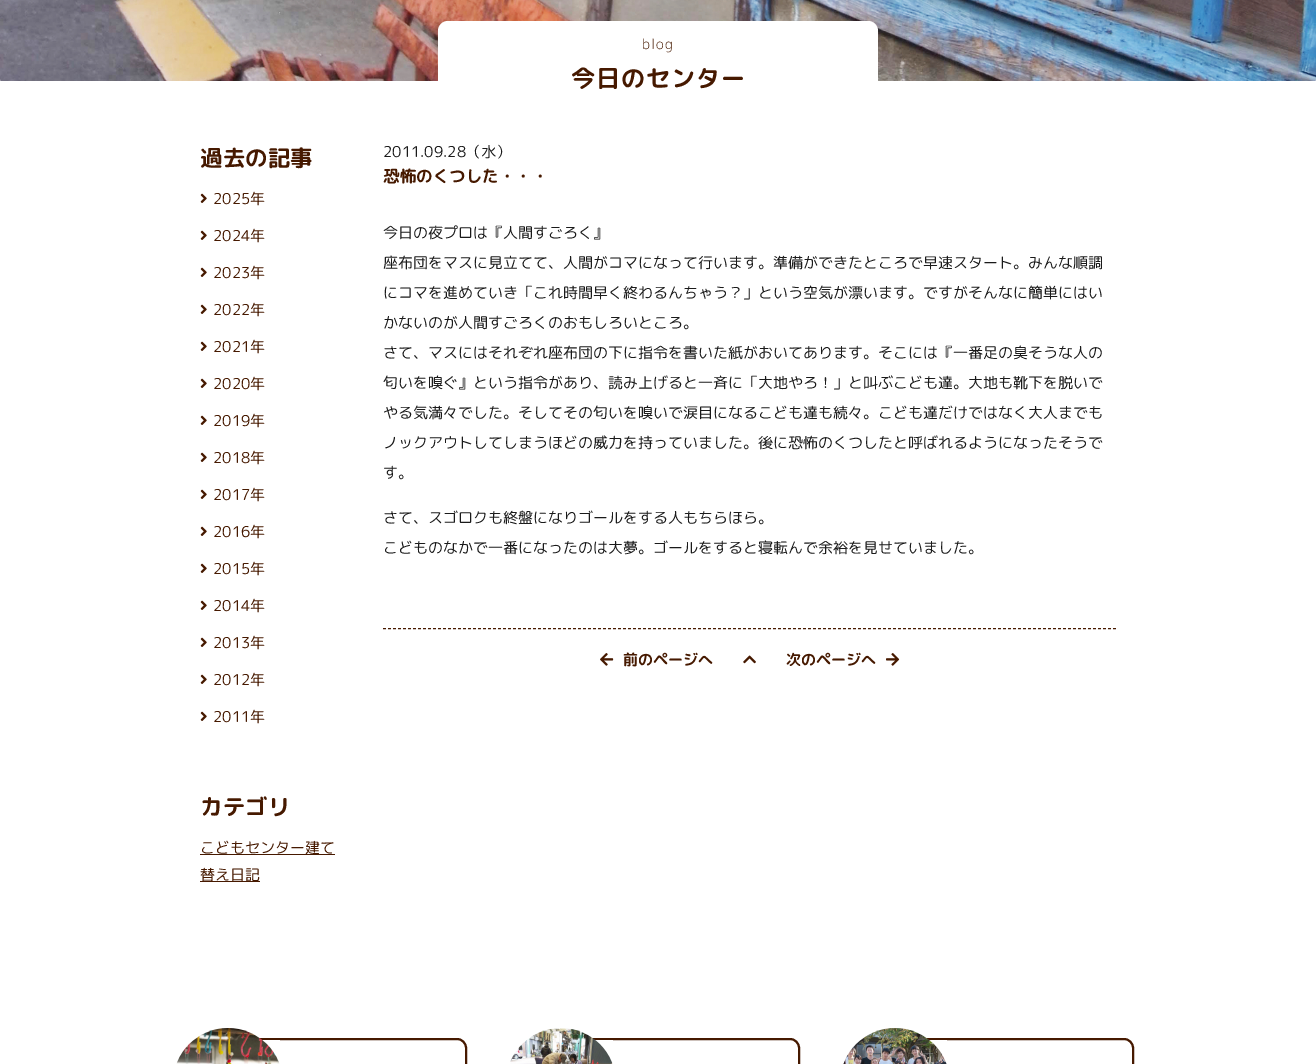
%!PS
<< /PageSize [1316 1064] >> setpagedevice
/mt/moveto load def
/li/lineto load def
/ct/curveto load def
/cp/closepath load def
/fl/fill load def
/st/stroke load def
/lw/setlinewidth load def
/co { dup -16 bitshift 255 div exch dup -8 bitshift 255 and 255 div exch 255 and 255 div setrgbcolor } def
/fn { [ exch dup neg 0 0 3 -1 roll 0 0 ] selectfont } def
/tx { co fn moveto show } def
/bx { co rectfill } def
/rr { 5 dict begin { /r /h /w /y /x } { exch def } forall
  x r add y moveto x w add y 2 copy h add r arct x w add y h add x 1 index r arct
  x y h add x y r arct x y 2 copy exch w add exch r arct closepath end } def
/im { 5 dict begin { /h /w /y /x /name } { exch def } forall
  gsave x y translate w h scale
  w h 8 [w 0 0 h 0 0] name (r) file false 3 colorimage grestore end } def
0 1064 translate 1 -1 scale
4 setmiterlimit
0 0 1316 1064 16#FFFFFF bx
(media/1.raw) 0 0 1316 81 im
448 21 mt 868 21 li 873.5 21 878 25.5 878 31 ct 878 81 li 438 81 li 438 31 li 438 25.5 442.5 21 448 21 ct cp fl
(media/2.raw) 200 193 7 10 im
(media/2.raw) 200 230 7 10 im
(media/2.raw) 200 267 7 10 im
(media/2.raw) 200 304 7 10 im
(media/2.raw) 200 341 7 10 im
(media/2.raw) 200 378 7 10 im
(media/2.raw) 200 415 7 10 im
(media/2.raw) 200 452 7 10 im
(media/2.raw) 200 489 7 10 im
(media/2.raw) 200 526 7 10 im
(media/2.raw) 200 563 7 10 im
(media/2.raw) 200 600 7 10 im
(media/2.raw) 200 637 7 10 im
(media/2.raw) 200 674 7 10 im
(media/2.raw) 200 711 7 10 im
200 854 135 1 16#461900 bx
200 881 60 1 16#461900 bx
[3 2] 0 setdash
383 628.5 mt 1116 628.5 li st
(media/3.raw) 600 653 14 13 im
(media/4.raw) 743 655 13 9 im
(media/5.raw) 886 653 14 13 im
2 lw
[] 0 setdash
194 1039 272 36 9 rr st
(media/6.raw) 176 1028 104 36 im
527 1039 272 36 9 rr st
(media/7.raw) 510 1028 103 36 im
861 1039 272 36 9 rr st
(media/8.raw) 843 1028 104 36 im
/RoundedMplus1c-Light 14 fn
642 49 mt 1 0 (blog) ashow
/RoundedMplus1cBold-Bold 24 fn
571 87 mt 1 0 (今日のセンター) ashow
(過去の記事) 200 166 /RoundedMplus1cBold-Bold 22.5 16#461900 tx
(2025年) 213 204 /RoundedMplus1c-Regular 15 16#461900 tx
(2024年) 213 241 /RoundedMplus1c-Regular 15 16#461900 tx
(2023年) 213 278 /RoundedMplus1c-Regular 15 16#461900 tx
(2022年) 213 315 /RoundedMplus1c-Regular 15 16#461900 tx
(2021年) 213 352 /RoundedMplus1c-Regular 15 16#461900 tx
(2020年) 213 389 /RoundedMplus1c-Regular 15 16#461900 tx
(2019年) 213 426 /RoundedMplus1c-Regular 15 16#461900 tx
(2018年) 213 463 /RoundedMplus1c-Regular 15 16#461900 tx
(2017年) 213 500 /RoundedMplus1c-Regular 15 16#461900 tx
(2016年) 213 537 /RoundedMplus1c-Regular 15 16#461900 tx
(2015年) 213 574 /RoundedMplus1c-Regular 15 16#461900 tx
(2014年) 213 611 /RoundedMplus1c-Regular 15 16#461900 tx
(2013年) 213 648 /RoundedMplus1c-Regular 15 16#461900 tx
(2012年) 213 685 /RoundedMplus1c-Regular 15 16#461900 tx
(2011年) 213 722 /RoundedMplus1c-Regular 15 16#461900 tx
(カテゴリ) 200 815 /RoundedMplus1cBold-Bold 22.5 16#461900 tx
(こどもセンター建て) 200 853 /RoundedMplus1c-Regular 15 16#461900 tx
(替え日記) 200 880 /RoundedMplus1c-Regular 15 16#461900 tx
(2011.09.28（水）) 383 157 /RoundedMplus1c-Regular 15 16#1A1A1A tx
(恐怖のくつした・・・) 383 182 /RoundedMplus1cBold-Bold 16.5 16#461900 tx
(今日の夜プロは『人間すごろく』) 383 238 /RoundedMplus1c-Regular 15 16#1A1A1A tx
(座布団をマスに見立てて、人間がコマになって行います。準備ができたところで早速スタート。みんな順調) 383 268 /RoundedMplus1c-Regular 15 16#1A1A1A tx
(にコマを進めていき「これ時間早く終わるんちゃう？」という空気が漂います。ですがそんなに簡単にはい) 383 298 /RoundedMplus1c-Regular 15 16#1A1A1A tx
(かないのが人間すごろくのおもしろいところ。) 383 328 /RoundedMplus1c-Regular 15 16#1A1A1A tx
(さて、マスにはそれぞれ座布団の下に指令を書いた紙がおいてあります。そこには『一番足の臭そうな人の) 383 358 /RoundedMplus1c-Regular 15 16#1A1A1A tx
(匂いを嗅ぐ』という指令があり、読み上げると一斉に「大地やろ！」と叫ぶこども達。大地も靴下を脱いで) 383 388 /RoundedMplus1c-Regular 15 16#1A1A1A tx
(やる気満々でした。そしてその匂いを嗅いで涙目になるこども達も続々。こども達だけではなく大人までも) 383 418 /RoundedMplus1c-Regular 15 16#1A1A1A tx
(ノックアウトしてしまうほどの威力を持っていました。後に恐怖のくつしたと呼ばれるようになったそうで) 383 448 /RoundedMplus1c-Regular 15 16#1A1A1A tx
(す。) 383 478 /RoundedMplus1c-Regular 15 16#1A1A1A tx
(さて、スゴロクも終盤になりゴールをする人もちらほら。) 383 523 /RoundedMplus1c-Regular 15 16#1A1A1A tx
(こどものなかで一番になったのは大夢。ゴールをすると寝転んで余裕を見せていました。) 383 553 /RoundedMplus1c-Regular 15 16#1A1A1A tx
(前のページへ) 623 665 /RoundedMplus1cBold-Bold 15 16#461900 tx
(次のページへ) 786 665 /RoundedMplus1cBold-Bold 15 16#461900 tx
showpage
